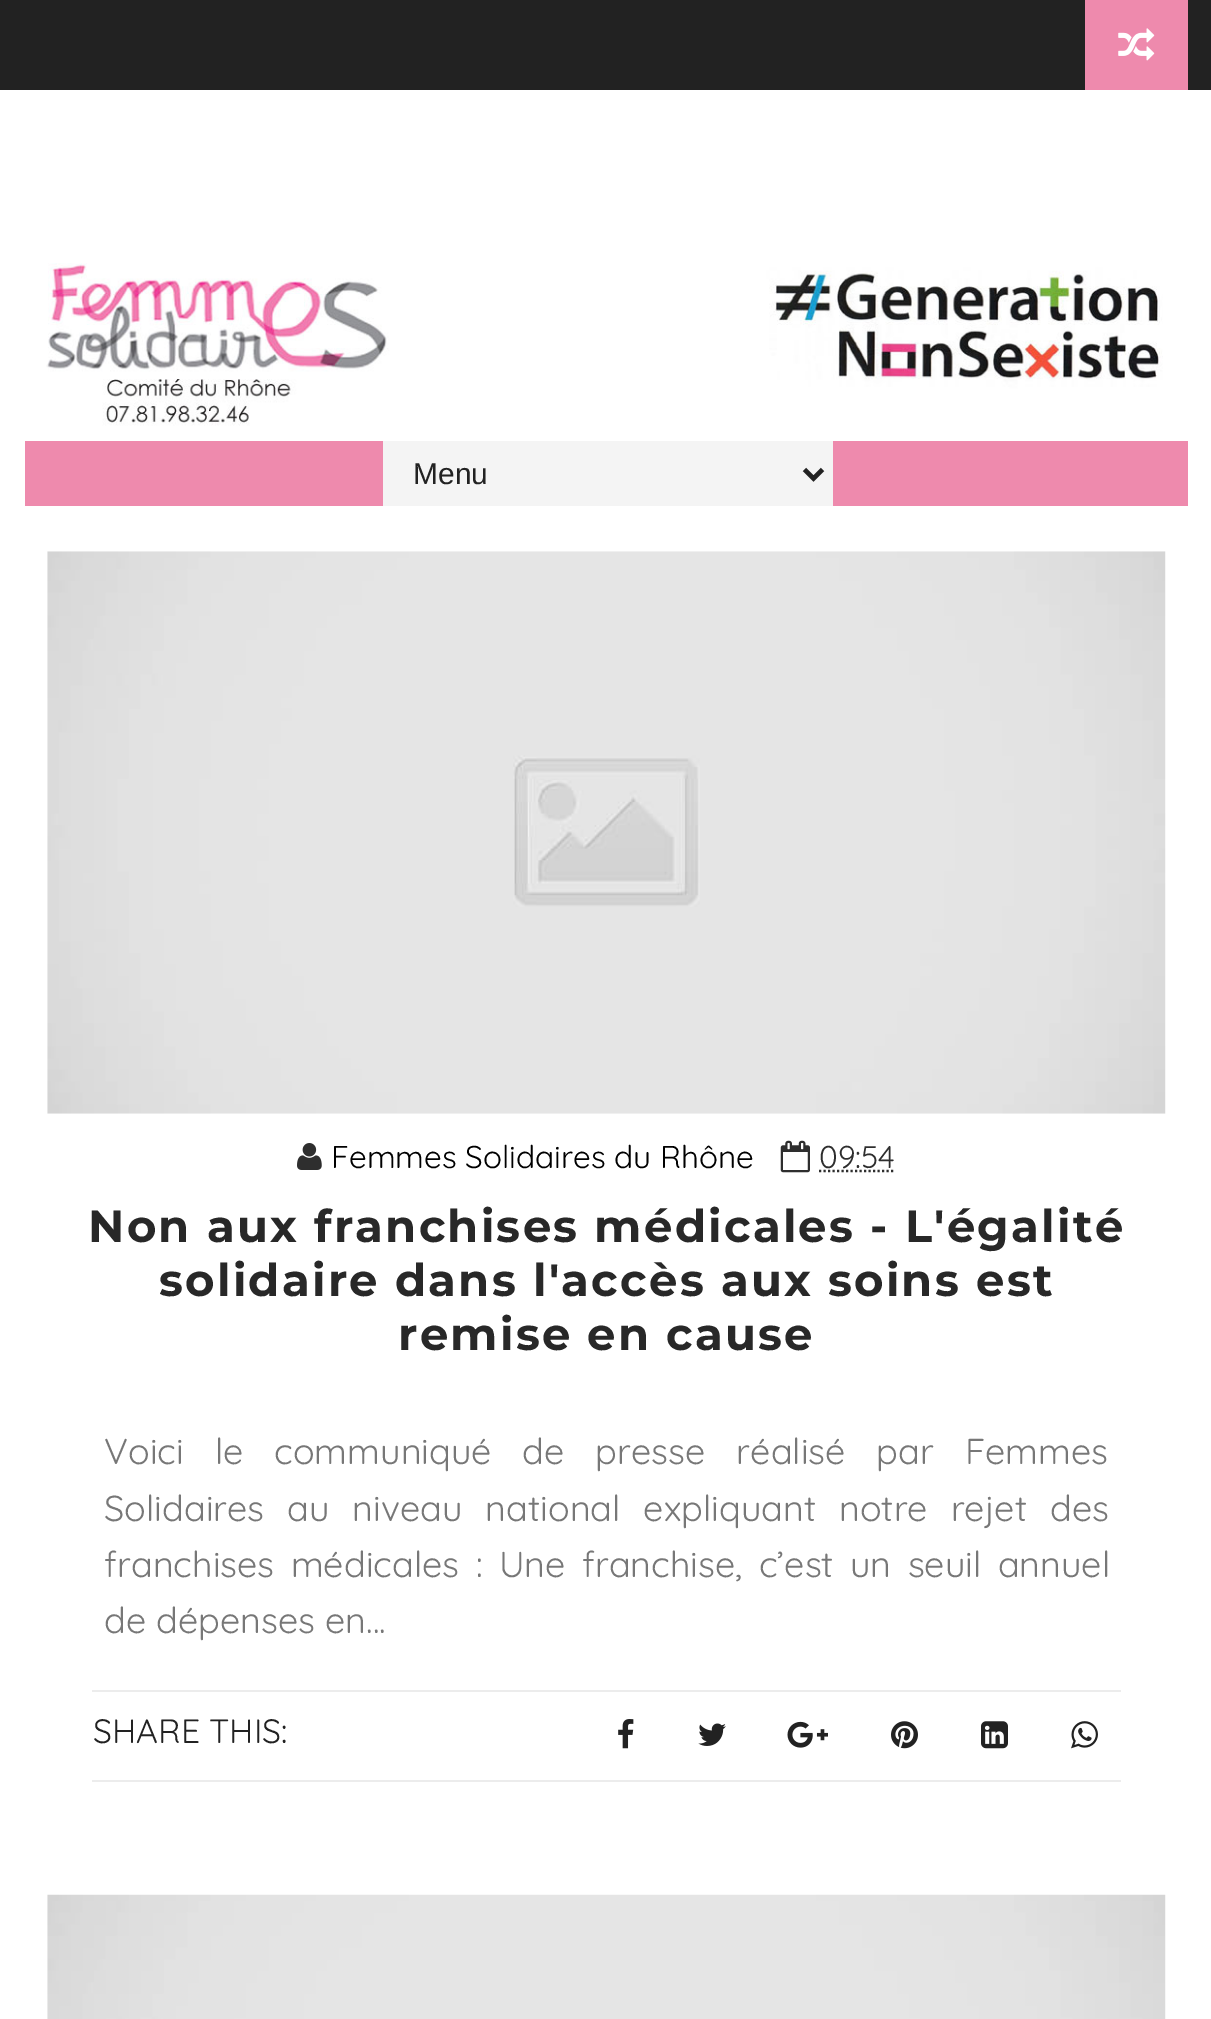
%!PS
<< /PageSize [1211 2019] >> setpagedevice
/mt/moveto load def
/li/lineto load def
/st/stroke load def
/lw/setlinewidth load def
/co { dup -16 bitshift 255 div exch dup -8 bitshift 255 and 255 div exch 255 and 255 div setrgbcolor } def
/fn { [ exch dup neg 0 0 3 -1 roll 0 0 ] selectfont } def
/tx { co fn moveto show } def
/bx { co rectfill } def
/im { 5 dict begin { /h /w /y /x /name } { exch def } forall
  gsave x y translate w h scale
  w h 8 [w 0 0 h 0 0] name (r) file false 3 colorimage grestore end } def
0 2019 translate 1 -1 scale
4 setmiterlimit
0 0 1211 2019 16#FFFFFF bx
0 0 1211 90 16#222222 bx
1085 0 103 90 16#EE8AAD bx
(media/1.raw) 1118 28 37 33 im
(media/2.raw) 46 263 1117 163 im
25 441 1163 65 16#EE8AAD bx
383 441 450 65 16#F4F4F4 bx
16#222222 co
4.5 lw
804.5 469.5 mt 813.5 478.5 li 822.5 469.5 li st
(media/3.raw) 47 551 1119 563 im
(media/4.raw) 297 1143 25 27 im
(media/5.raw) 780 1140 30 33 im
16#2E2E2E co
2.2 lw
[2.25 2.25] 0 setdash
819 1171 mt 895 1171 li st
92 1690 1029 2 16#ECECEC bx
92 1780 1029 2 16#ECECEC bx
(media/6.raw) 618 1719 16 30 im
(media/7.raw) 698 1723 28 23 im
(media/8.raw) 787 1721 41 27 im
(media/9.raw) 891 1721 27 28 im
(media/10.raw) 981 1721 27 28 im
(media/11.raw) 1071 1721 27 28 im
(media/12.raw) 47 1894 1119 125 im
(Menu) 413 484 /LiberationSans-Regular 30 16#222222 tx
(Femmes Solidaires du Rhône) 331 1168 /Quicksand-Regular 31.5 16#000000 tx
(09:54) 819 1168 /Quicksand-Regular 31.5 16#2E2E2E tx
/Montserrat-Bold 45 fn
16#282828 co
88 1242 mt 2.25 0 (Non aux franchises médicales - L'égalité) ashow
159 1296 mt 2.25 0 (solidaire dans l'accès aux soins est) ashow
398 1350 mt 2.25 0 (remise en cause) ashow
/Quicksand-Regular 36 fn
16#777777 co
104 1464 mt 21 0 32 (Voici le communiqué de presse réalisé par Femmes) widthshow
104 1521 mt 13 0 32 (Solidaires au niveau national expliquant notre rejet des) widthshow
104 1577 mt 6.5 0 32 (franchises médicales : Une franchise, c’est un seuil annuel) widthshow
(de dépenses en...) 104 1633 /Quicksand-Regular 36 16#777777 tx
(SHARE THIS:) 93 1743 /Quicksand-Regular 33.75 16#222222 tx
showpage
